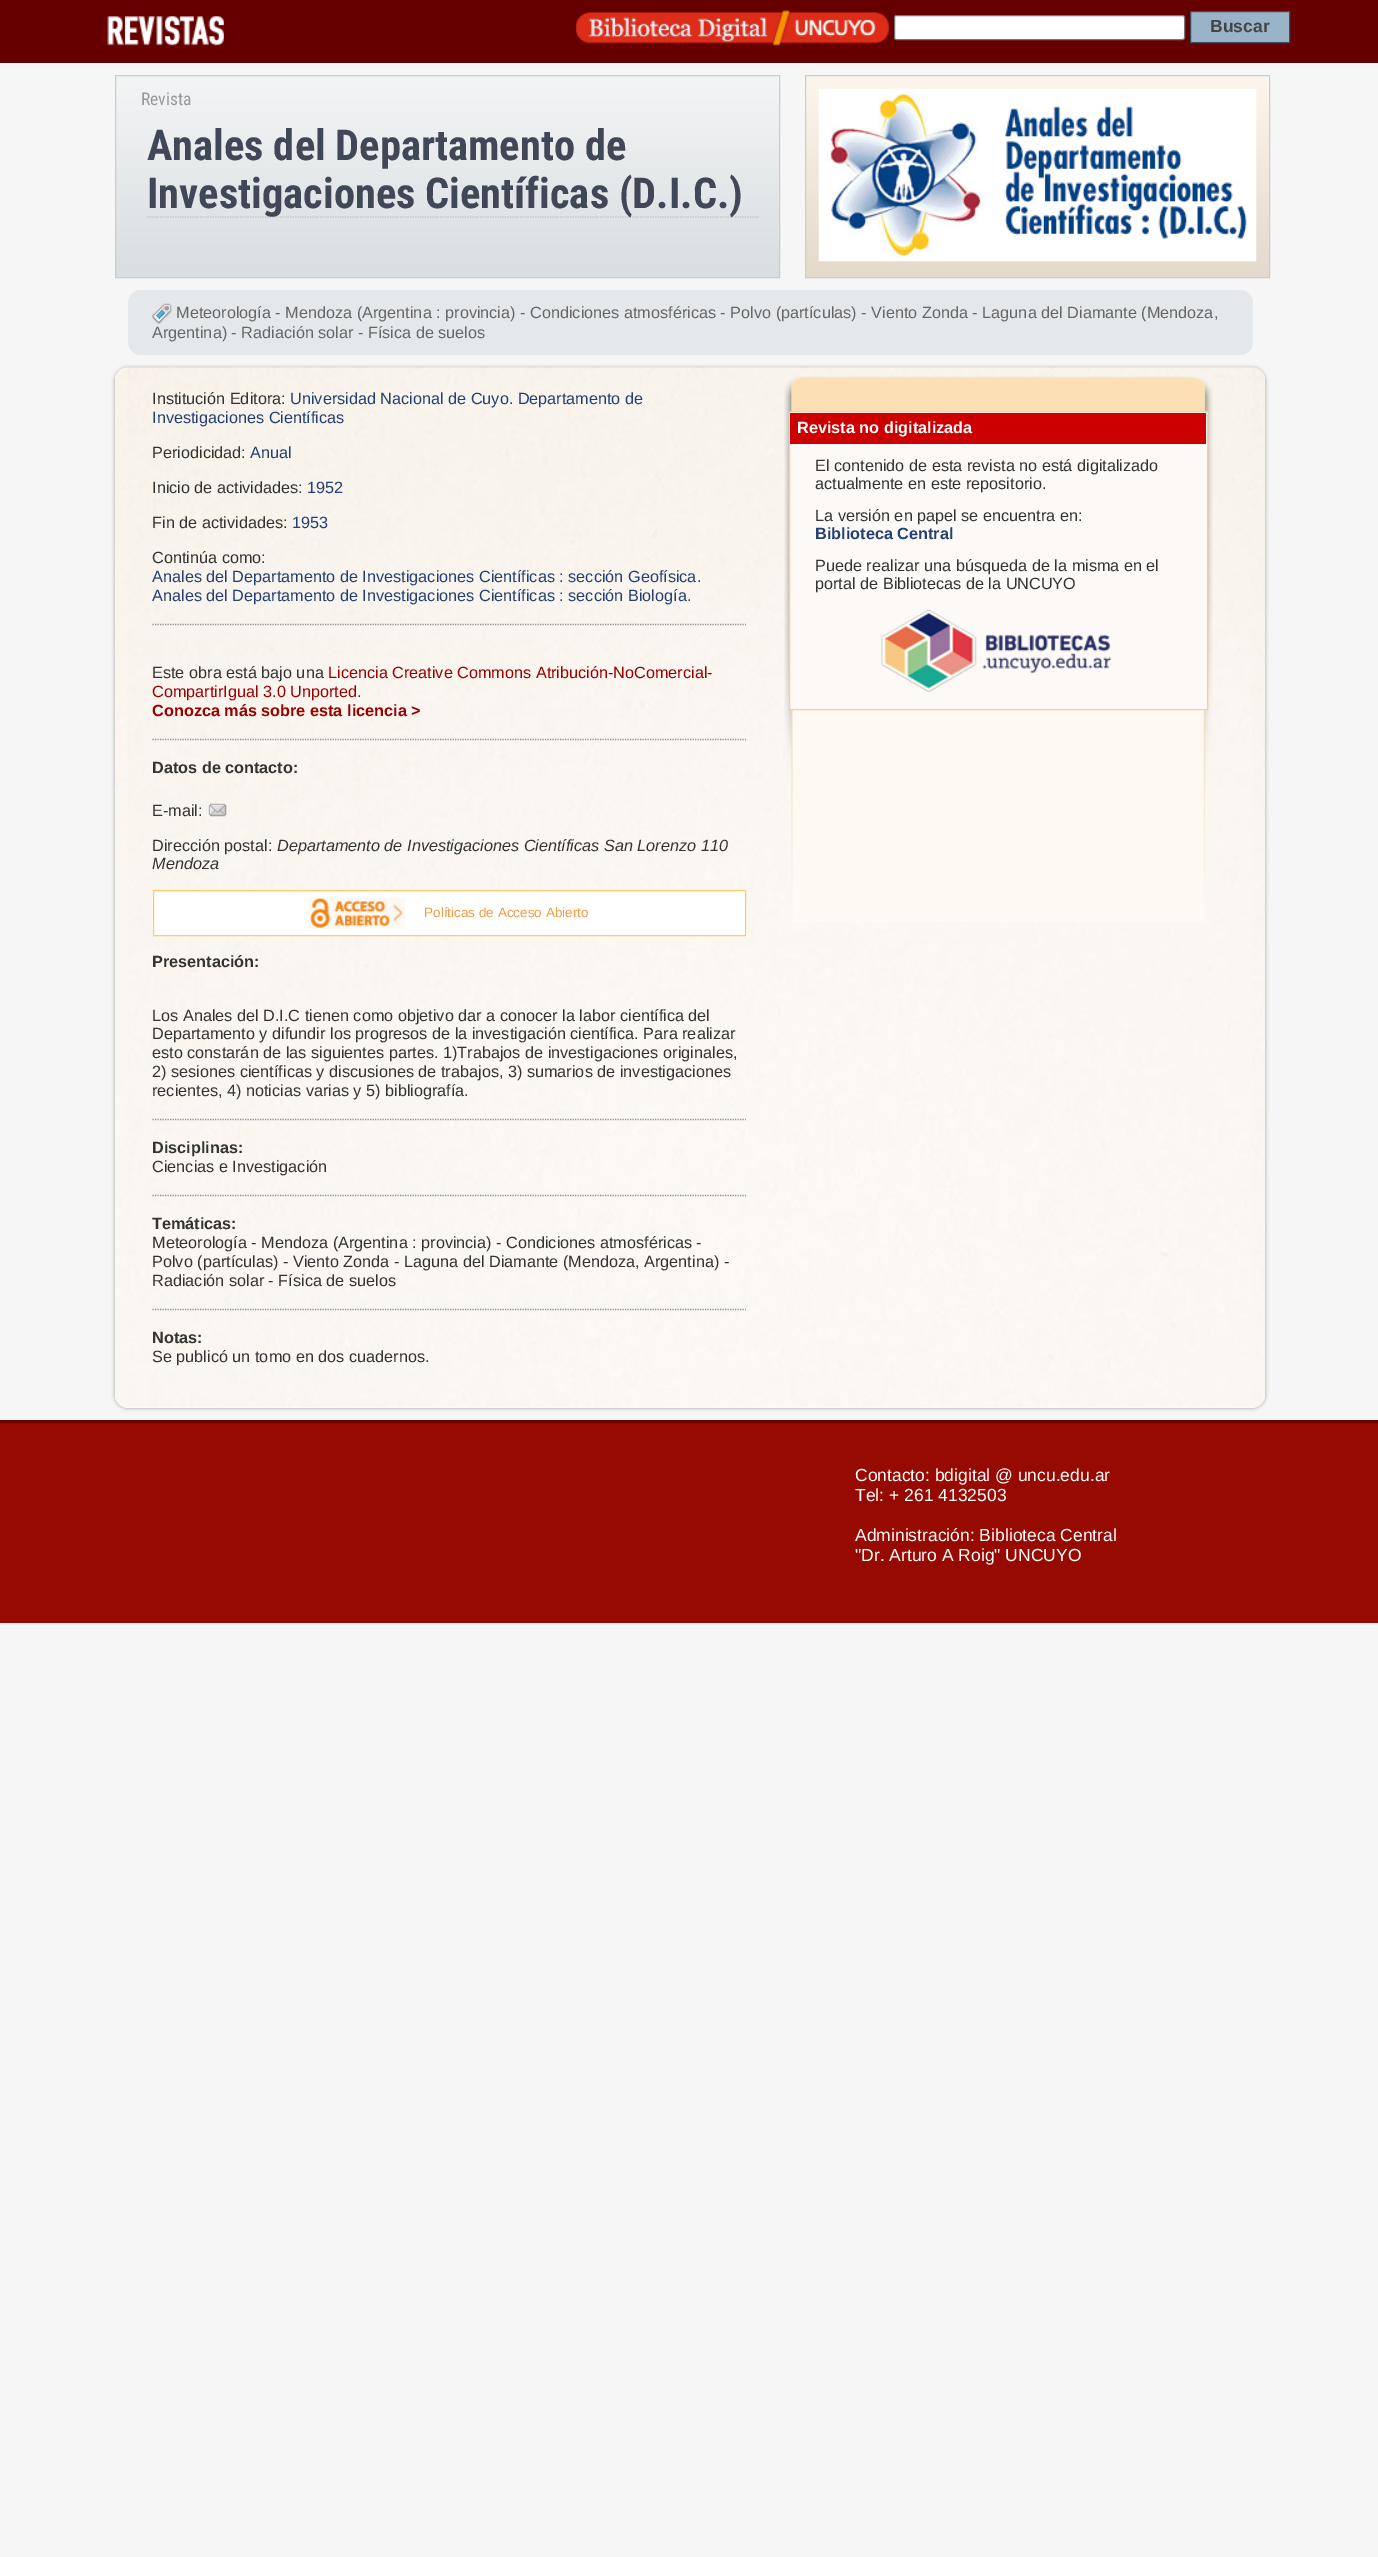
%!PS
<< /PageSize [1378 2557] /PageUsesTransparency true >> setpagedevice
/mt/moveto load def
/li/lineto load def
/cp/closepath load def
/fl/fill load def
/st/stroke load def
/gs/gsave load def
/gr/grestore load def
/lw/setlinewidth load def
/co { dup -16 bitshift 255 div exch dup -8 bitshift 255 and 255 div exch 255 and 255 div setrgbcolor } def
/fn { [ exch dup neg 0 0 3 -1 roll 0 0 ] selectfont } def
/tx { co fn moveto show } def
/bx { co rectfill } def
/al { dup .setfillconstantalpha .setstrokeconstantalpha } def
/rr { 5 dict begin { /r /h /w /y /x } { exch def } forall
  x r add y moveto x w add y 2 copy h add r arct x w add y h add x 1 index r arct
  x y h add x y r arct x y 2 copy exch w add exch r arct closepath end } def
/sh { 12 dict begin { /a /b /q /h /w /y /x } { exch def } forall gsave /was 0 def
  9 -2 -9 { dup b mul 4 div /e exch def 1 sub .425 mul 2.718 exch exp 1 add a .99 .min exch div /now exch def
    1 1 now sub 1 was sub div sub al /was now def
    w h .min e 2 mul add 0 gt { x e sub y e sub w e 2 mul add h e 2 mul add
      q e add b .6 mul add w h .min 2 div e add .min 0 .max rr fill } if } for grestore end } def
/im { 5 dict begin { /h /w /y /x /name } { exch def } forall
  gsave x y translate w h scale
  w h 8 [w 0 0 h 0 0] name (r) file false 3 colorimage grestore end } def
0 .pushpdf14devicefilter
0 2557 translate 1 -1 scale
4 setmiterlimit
0 0 1378 2557 16#F6F6F6 bx
0 0 1378 63 16#660000 bx
(media/1.raw) 107 16 117 30 im
(media/2.raw) 576 9 313 37 im
16#FFFFFF co
894.5 15.5 290 24 2 rr gs fl gr
16#767676 co
st
16#99B3C8 co
1190.5 11.5 mt 1289.5 11.5 li 1289.5 42.5 li 1190.5 42.5 li cp gs fl gr
16#3A4D5A co
st
(media/3.raw) 116 76 663 201 im
16#CCCCCC co
115.5 75.5 664 202 rectstroke
16#C0C0C0 co
1.2 lw
[1.25 1.25] 0 setdash
147.5 217 mt 760 217 li st
(media/4.raw) 806 76 463 201 im
16#CCCCCC co
1 lw
[] 0 setdash
805.5 75.5 464 202 rectstroke
(media/5.raw) 818 88 439 174 im
16#E4E8EB co
128 290 1125 65 13 rr fl
(media/6.raw) 152 303 20 21 im
16#999999 co
115 368 1150 1040 13 2 1 sh
16#FEF9F2 co
115 368 1150 1040 13 rr fl
(media/7.raw) 115 367 1150 1040 im
16#8E8E8E co
1.2 lw
[1.25 1.25] 0 setdash
152.5 624.5 mt 746 624.5 li st
152.5 739.5 mt 746 739.5 li st
(media/8.raw) 208 803 19 14 im
16#FFFFFF co
153.5 890.5 mt 745.5 890.5 li 745.5 935.5 li 153.5 935.5 li cp gs fl gr
16#FFCC66 co
1 lw
[] 0 setdash
st
(media/9.raw) 308 897 97 32 im
16#8E8E8E co
1.2 lw
[1.25 1.25] 0 setdash
152.5 1119.5 mt 746 1119.5 li st
152.5 1195.5 mt 746 1195.5 li st
152.5 1309.5 mt 746 1309.5 li st
(media/10.raw) 784 376 429 546 im
16#FCF9F6 co
789.5 411.5 mt 1207.5 411.5 li 1207.5 709.5 li 789.5 709.5 li cp gs fl gr
16#FFCC99 co
1 lw
[] 0 setdash
st
790 413 416 31 16#CC0000 bx
(media/11.raw) 881 610 231 83 im
0 1423 1378 200 16#960A02 bx
0 1420 1378 3 16#660000 bx
(Buscar) 1210 32 /LiberationSans-Bold 17.5 16#444444 tx
(Revista) 141 105 /RobotoCondensed-Regular 17.5 16#999999 tx
(Anales del Departamento de) 147 160 /RobotoCondensed-Bold 42.5 16#404756 tx
(Investigaciones Científicas \(D.I.C.\)) 147 208 /RobotoCondensed-Bold 42.5 16#404756 tx
(Meteorología - Mendoza \(Argentina : provincia\) - Condiciones atmosféricas - Polvo \(partículas\) - Viento Zonda - Laguna del Diamante \(Mendoza,) 176 318 /LiberationSans-Regular 16.25 16#666666 tx
(Argentina\) - Radiación solar - Física de suelos) 152 338 /LiberationSans-Regular 16.25 16#666666 tx
(Institución Editora:) 152 404 /LiberationSans-Regular 16.25 16#333333 tx
(Universidad Nacional de Cuyo. Departamento de) 290 404 /LiberationSans-Regular 16.25 16#243F71 tx
(Investigaciones Científicas) 152 423 /LiberationSans-Regular 16.25 16#243F71 tx
(Periodicidad:) 152 458 /LiberationSans-Regular 16.25 16#333333 tx
(Anual) 250 458 /LiberationSans-Regular 16.25 16#243F71 tx
(Inicio de actividades:) 152 493 /LiberationSans-Regular 16.25 16#333333 tx
(1952) 307 493 /LiberationSans-Regular 16.25 16#243F71 tx
(Fin de actividades:) 152 528 /LiberationSans-Regular 16.25 16#333333 tx
(1953) 292 528 /LiberationSans-Regular 16.25 16#243F71 tx
(Continúa como:) 152 563 /LiberationSans-Regular 16.25 16#333333 tx
(Anales del Departamento de Investigaciones Científicas : sección Geofísica.) 152 582 /LiberationSans-Regular 16.25 16#243F71 tx
(Anales del Departamento de Investigaciones Científicas : sección Biología.) 152 601 /LiberationSans-Regular 16.25 16#243F71 tx
(Este obra está bajo una) 152 678 /LiberationSans-Regular 16.25 16#333333 tx
(Licencia Creative Commons Atribución-NoComercial-) 328 678 /LiberationSans-Regular 16.25 16#990000 tx
(CompartirIgual 3.0 Unported) 152 697 /LiberationSans-Regular 16.25 16#990000 tx
(.) 357 697 /LiberationSans-Regular 16.25 16#333333 tx
(Conozca más sobre esta licencia >) 152 716 /LiberationSans-Bold 16.25 16#990000 tx
(Datos de contacto:) 152 773 /LiberationSans-Bold 16.25 16#333333 tx
(E-mail:) 152 816 /LiberationSans-Regular 16.25 16#333333 tx
(Dirección postal:) 152 851 /LiberationSans-Regular 16.25 16#333333 tx
(Departamento de Investigaciones Científicas San Lorenzo 110) 277 851 /LiberationSans-Italic 16.25 16#333333 tx
(Mendoza) 152 869 /LiberationSans-Italic 16.25 16#333333 tx
(Políticas de Acceso Abierto) 424 917 /LiberationSans-Regular 13.5 16#F19940 tx
(Presentación:) 152 967 /LiberationSans-Bold 16.25 16#333333 tx
(Los Anales del D.I.C tienen como objetivo dar a conocer la labor científica del) 152 1021 /LiberationSans-Regular 16.25 16#333333 tx
(Departamento y difundir los progresos de la investigación científica. Para realizar) 152 1039 /LiberationSans-Regular 16.25 16#333333 tx
(esto constarán de las siguientes partes. 1\)Trabajos de investigaciones originales,) 152 1058 /LiberationSans-Regular 16.25 16#333333 tx
(2\) sesiones científicas y discusiones de trabajos, 3\) sumarios de investigaciones) 152 1077 /LiberationSans-Regular 16.25 16#333333 tx
(recientes, 4\) noticias varias y 5\) bibliografía.) 152 1096 /LiberationSans-Regular 16.25 16#333333 tx
(Disciplinas:) 152 1153 /LiberationSans-Bold 16.25 16#333333 tx
(Ciencias e Investigación) 152 1172 /LiberationSans-Regular 16.25 16#333333 tx
(Temáticas:) 152 1229 /LiberationSans-Bold 16.25 16#333333 tx
(Meteorología - Mendoza \(Argentina : provincia\) - Condiciones atmosféricas -) 152 1248 /LiberationSans-Regular 16.25 16#333333 tx
(Polvo \(partículas\) - Viento Zonda - Laguna del Diamante \(Mendoza, Argentina\) -) 152 1267 /LiberationSans-Regular 16.25 16#333333 tx
(Radiación solar - Física de suelos) 152 1286 /LiberationSans-Regular 16.25 16#333333 tx
(Notas:) 152 1343 /LiberationSans-Bold 16.25 16#333333 tx
(Se publicó un tomo en dos cuadernos.) 152 1362 /LiberationSans-Regular 16.25 16#333333 tx
(Revista no digitalizada) 797 433 /LiberationSans-Bold 16.25 16#FFFFFF tx
(El contenido de esta revista no está digitalizado) 815 471 /LiberationSans-Regular 16.25 16#333333 tx
(actualmente en este repositorio.) 815 489 /LiberationSans-Regular 16.25 16#333333 tx
(La versión en papel se encuentra en:) 815 521 /LiberationSans-Regular 16.25 16#333333 tx
(Biblioteca Central) 815 539 /LiberationSans-Bold 16.25 16#243F71 tx
(Puede realizar una búsqueda de la misma en el) 815 571 /LiberationSans-Regular 16.25 16#333333 tx
(portal de Bibliotecas de la UNCUYO) 815 589 /LiberationSans-Regular 16.25 16#333333 tx
(Contacto: bdigital @ uncu.edu.ar) 855 1481 /LiberationSans-Regular 17.5 16#FFFFFF tx
(Tel: + 261 4132503) 855 1501 /LiberationSans-Regular 17.5 16#FFFFFF tx
(Administración: Biblioteca Central) 855 1541 /LiberationSans-Regular 17.5 16#FFFFFF tx
("Dr. Arturo A Roig" UNCUYO) 855 1561 /LiberationSans-Regular 17.5 16#FFFFFF tx
.poppdf14devicefilter showpage
